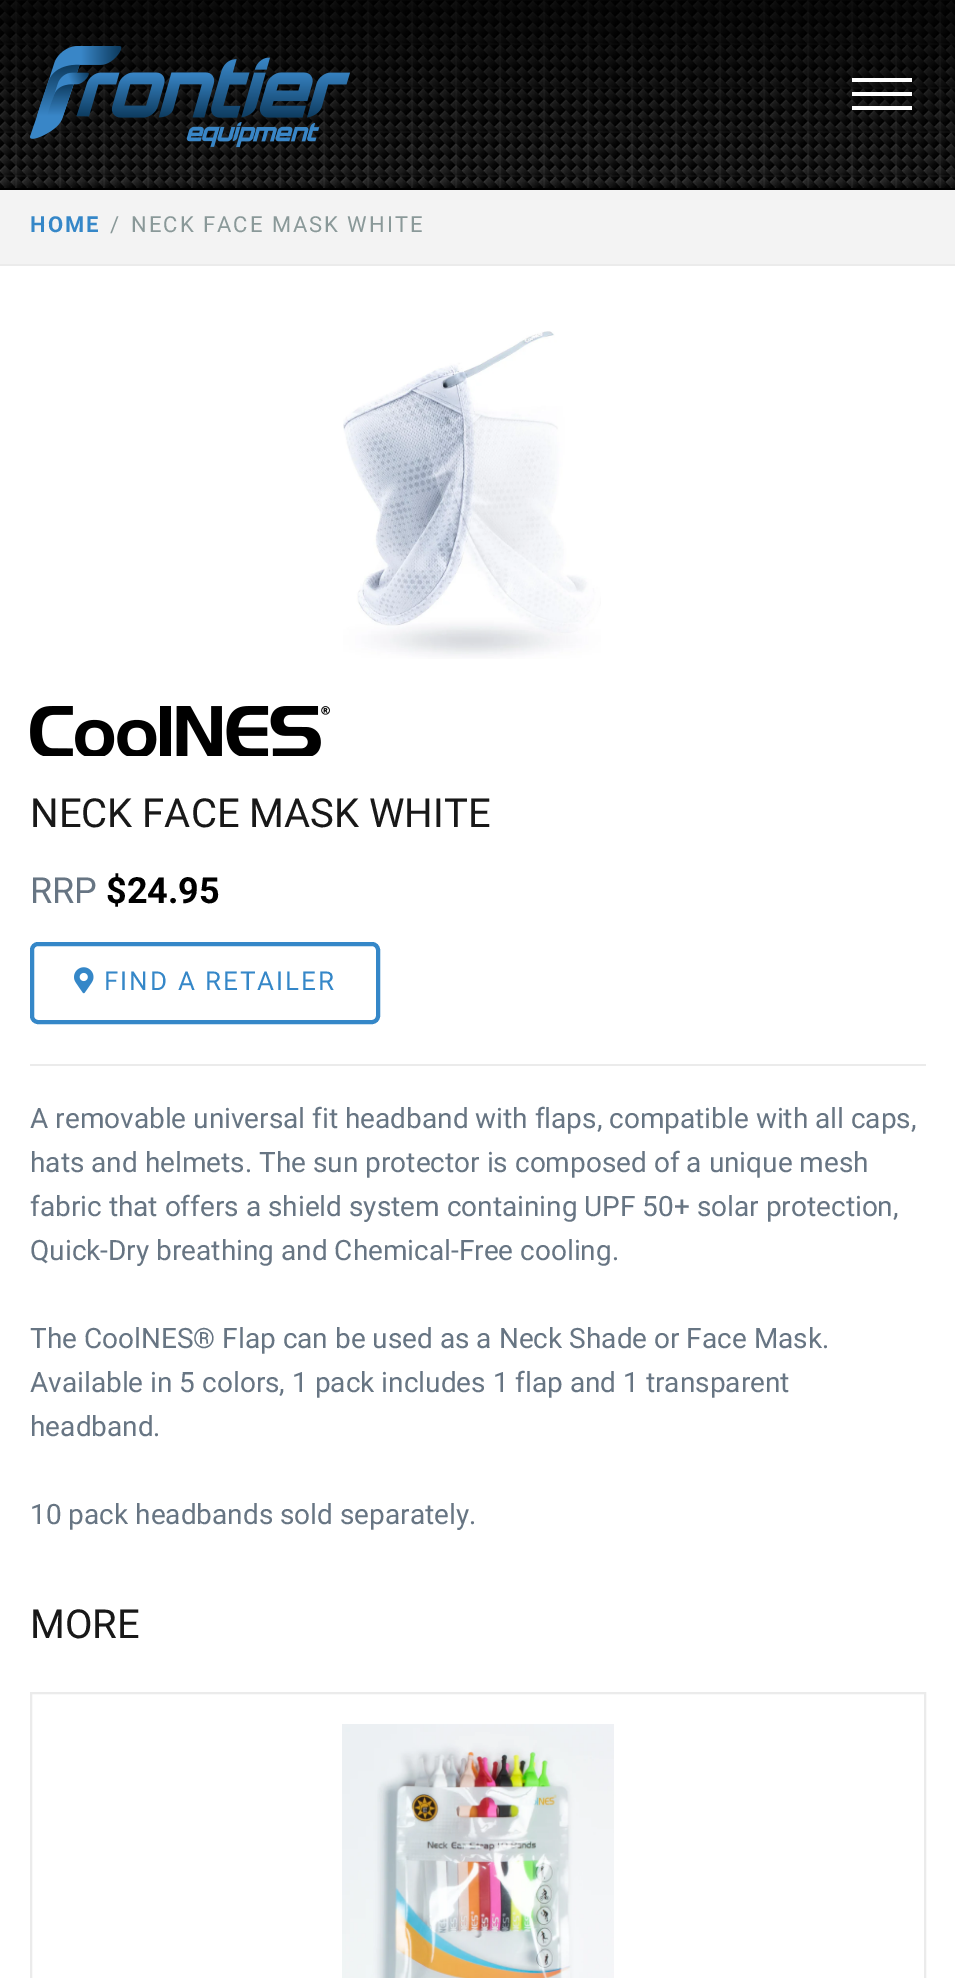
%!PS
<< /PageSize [955 1978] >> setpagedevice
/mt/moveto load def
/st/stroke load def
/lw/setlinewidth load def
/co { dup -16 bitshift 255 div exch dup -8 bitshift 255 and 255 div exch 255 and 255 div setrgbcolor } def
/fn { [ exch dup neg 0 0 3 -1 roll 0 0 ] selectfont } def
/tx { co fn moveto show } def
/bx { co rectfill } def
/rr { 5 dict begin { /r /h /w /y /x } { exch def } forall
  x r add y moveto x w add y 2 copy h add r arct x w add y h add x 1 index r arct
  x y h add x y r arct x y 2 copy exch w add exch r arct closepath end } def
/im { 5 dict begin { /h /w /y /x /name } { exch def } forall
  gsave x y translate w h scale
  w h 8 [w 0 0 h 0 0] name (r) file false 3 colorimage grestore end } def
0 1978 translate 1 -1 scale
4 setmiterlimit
0 0 955 1978 16#FFFFFF bx
(media/1.raw) 0 0 955 188 im
0 188 955 2 16#000000 bx
(media/2.raw) 30 46 320 102 im
852 78 60 4 16#FFFFFF bx
852 92 60 4 16#FFFFFF bx
852 106 60 4 16#FFFFFF bx
0 190 955 74 16#F3F3F3 bx
0 264 955 2 16#EBEBEB bx
(media/3.raw) 343 331 258 328 im
(media/4.raw) 30 706 300 50 im
16#3587C8 co
4 lw
32 944 346 78 6 rr st
(media/5.raw) 74 967 20 27 im
30 1064 896 2 16#EBEBEB bx
2 lw
31 1693 894 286 rectstroke
(media/6.raw) 342 1724 272 254 im
/Roboto-Bold 22 fn
16#3587C8 co
30 232 mt 2 0 (HOME) ashow
/Roboto-Regular 22 fn
16#8A9999 co
110 232 mt 2 0 (/) ashow
131 232 mt 2 0 (NECK FACE MASK WHITE) ashow
(NECK FACE MASK WHITE) 30 827 /Roboto-Regular 40 16#181818 tx
(RRP) 30 903 /Roboto-Regular 36 16#677583 tx
($24.95) 106 903 /Roboto-Bold 36 16#000000 tx
/Roboto-Regular 26 fn
16#3587C8 co
104 990 mt 2 0 (FIND A RETAILER) ashow
(A removable universal fit headband with flaps, compatible with all caps,) 30 1128 /Roboto-Regular 28 16#677583 tx
(hats and helmets. The sun protector is composed of a unique mesh) 30 1172 /Roboto-Regular 28 16#677583 tx
(fabric that offers a shield system containing UPF 50+ solar protection,) 30 1216 /Roboto-Regular 28 16#677583 tx
(Quick-Dry breathing and Chemical-Free cooling.) 30 1260 /Roboto-Regular 28 16#677583 tx
(The CoolNES® Flap can be used as a Neck Shade or Face Mask.) 30 1348 /Roboto-Regular 28 16#677583 tx
(Available in 5 colors, 1 pack includes 1 flap and 1 transparent) 30 1392 /Roboto-Regular 28 16#677583 tx
(headband.) 30 1436 /Roboto-Regular 28 16#677583 tx
(10 pack headbands sold separately.) 30 1524 /Roboto-Regular 28 16#677583 tx
(MORE) 30 1638 /Roboto-Regular 40 16#181818 tx
showpage
